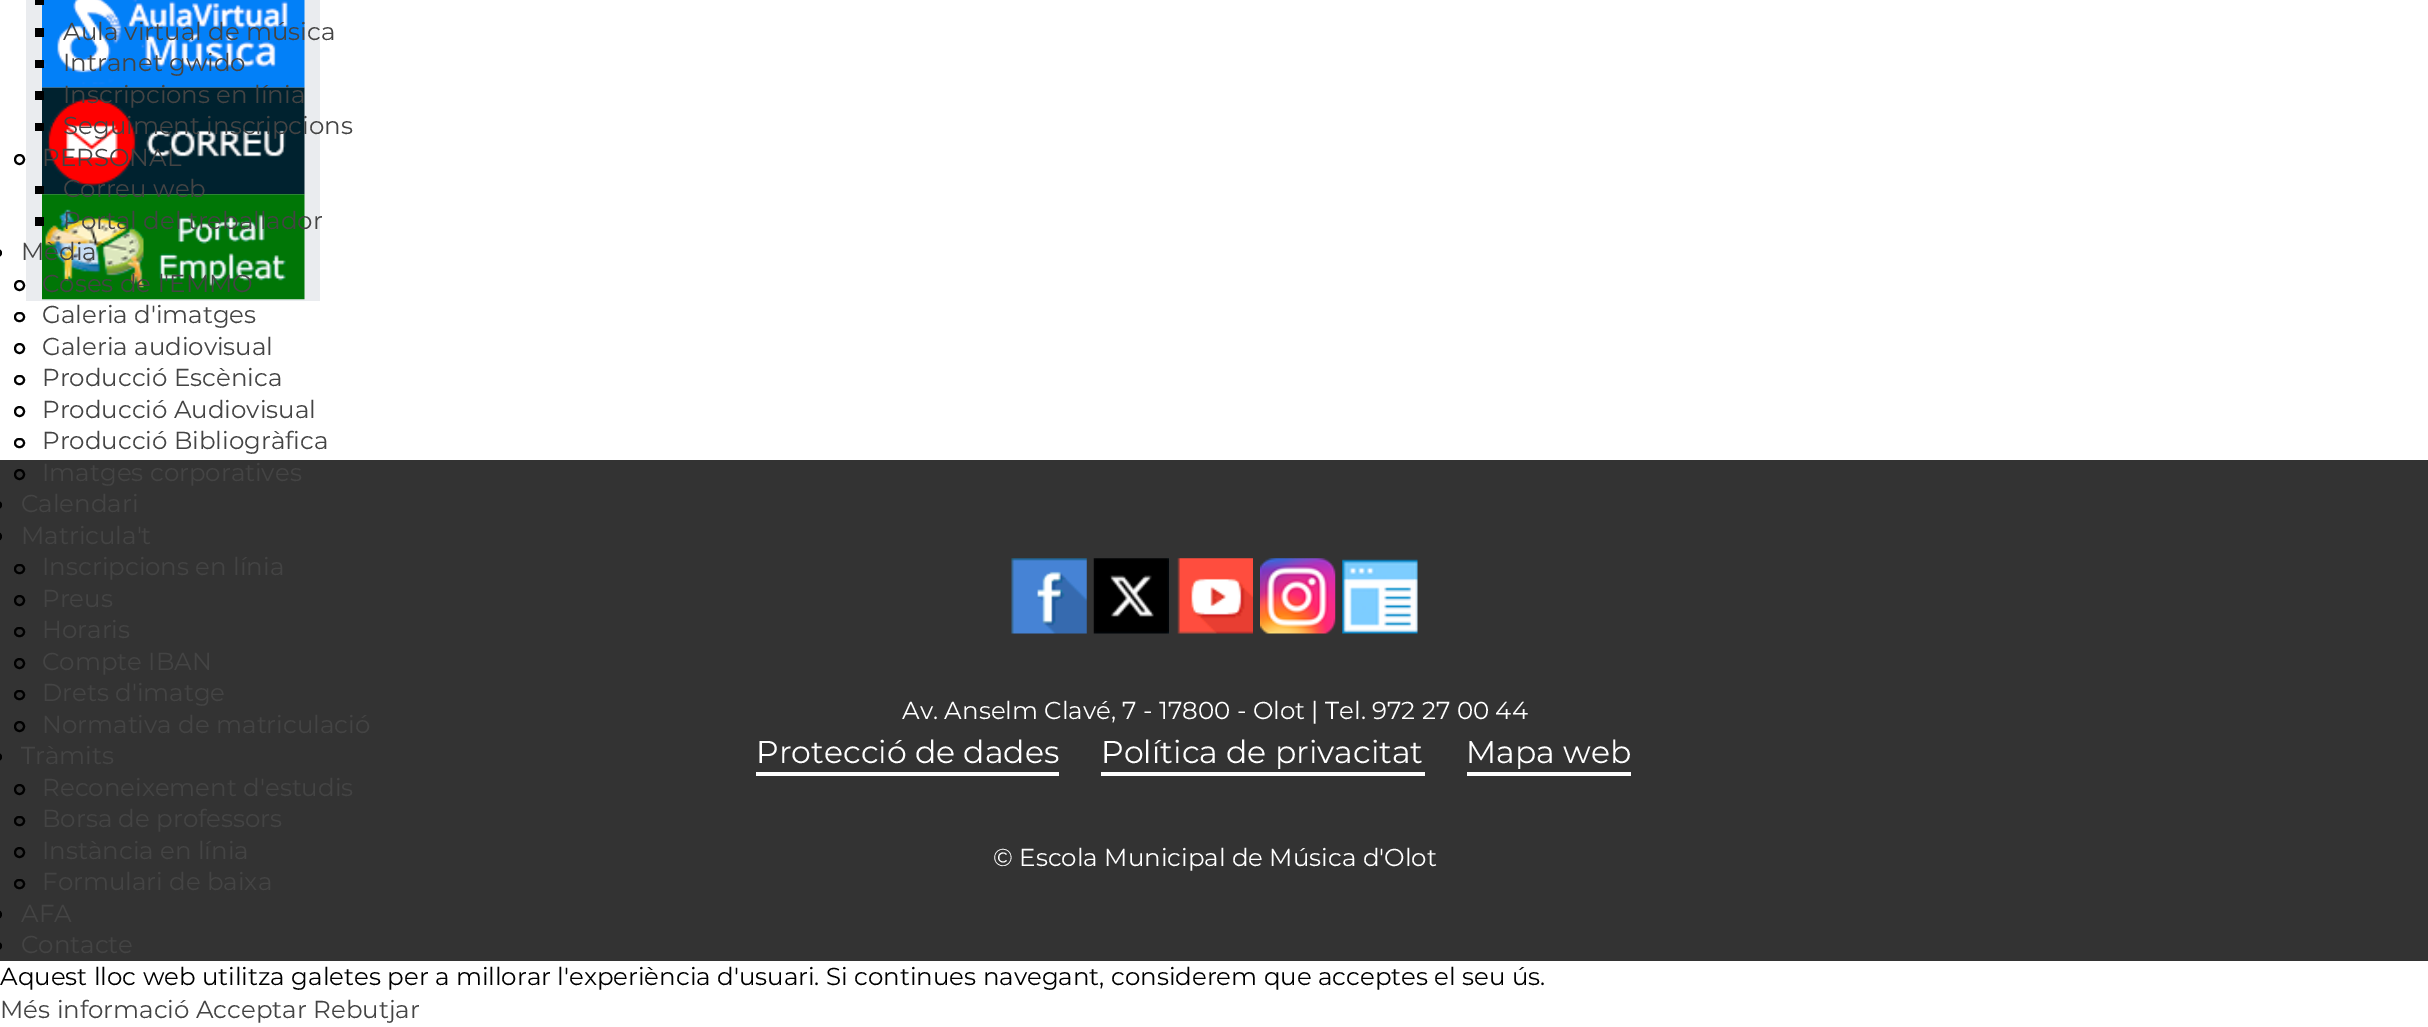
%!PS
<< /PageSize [2428 1027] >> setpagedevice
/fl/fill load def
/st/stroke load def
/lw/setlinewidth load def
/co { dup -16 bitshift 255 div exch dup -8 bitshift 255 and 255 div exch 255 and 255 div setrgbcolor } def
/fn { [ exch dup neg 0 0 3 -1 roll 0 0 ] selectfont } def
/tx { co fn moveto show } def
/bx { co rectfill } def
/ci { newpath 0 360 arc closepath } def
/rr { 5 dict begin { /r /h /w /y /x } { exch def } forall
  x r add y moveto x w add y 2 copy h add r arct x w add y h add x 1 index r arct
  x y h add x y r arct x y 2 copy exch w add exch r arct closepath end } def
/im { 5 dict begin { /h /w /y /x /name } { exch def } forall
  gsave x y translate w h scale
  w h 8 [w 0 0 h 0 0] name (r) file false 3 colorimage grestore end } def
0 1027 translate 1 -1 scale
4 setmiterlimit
0 0 2428 1027 16#FFFFFF bx
26 0 294 301 16#EAECEF bx
(media/1.raw) 42 0 263 88 im
(media/2.raw) 42 87 263 108 im
(media/3.raw) 42 194 263 106 im
35 0 9 5 16#000000 bx
35 28 9 9 16#000000 bx
35 60 9 8 16#000000 bx
35 91 9 9 16#000000 bx
35 123 9 8 16#000000 bx
2 lw
19.5 159.5 4.5 ci st
35 186 9 8 16#000000 bx
35 217 9 9 16#000000 bx
-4 249 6 8 4 rr fl
19.5 285.5 4.5 ci st
15 313 9 8 4 rr st
19.5 348.5 4.5 ci st
15 376 9 8 4 rr st
19.5 411.5 4.5 ci st
15 439 9 8 4 rr st
0 460 2428 501 16#333333 bx
16#000000 co
19.5 474.5 4.5 ci st
-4 501 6 8 4 rr fl
-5 532 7 9 4.5 rr fl
15 565 9 8 4 rr st
19.5 600.5 4.5 ci st
15 628 9 8 4 rr st
19.5 663.5 4.5 ci st
15 691 9 8 4 rr st
19.5 726.5 4.5 ci st
-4 753 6 8 4 rr fl
19.5 789.5 4.5 ci st
15 817 9 8 4 rr st
19.5 852.5 4.5 ci st
15 880 9 8 4 rr st
-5 910 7 9 4.5 rr fl
-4 942 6 8 4 rr fl
(media/4.raw) 1011 558 76 76 im
(media/5.raw) 1093 558 76 76 im
(media/6.raw) 1177 558 76 76 im
(media/7.raw) 1260 558 76 76 im
(media/8.raw) 1342 559 76 75 im
756 772 303 4 16#FFFFFF bx
1101 772 324 4 16#FFFFFF bx
1467 772 164 4 16#FFFFFF bx
(Aula virtual de música) 63 40 /Montserrat-Regular 24.5 16#444444 tx
(Intranet gwido) 63 71 /Montserrat-Regular 24.5 16#444444 tx
(Inscripcions en línia) 63 103 /Montserrat-Regular 24.5 16#444444 tx
(Seguiment inscripcions) 63 134 /Montserrat-Regular 24.5 16#444444 tx
(PERSONAL) 42 166 /Montserrat-Regular 24.5 16#444444 tx
(Correu web) 63 197 /Montserrat-Regular 24.5 16#444444 tx
(Portal del treballador) 63 229 /Montserrat-Regular 24.5 16#444444 tx
(Mèdia) 21 260 /Montserrat-Regular 24.5 16#444444 tx
(Coses de l'EMMO) 42 292 /Montserrat-Regular 24.5 16#444444 tx
(Galeria d'imatges) 42 323 /Montserrat-Regular 24.5 16#444444 tx
(Galeria audiovisual) 42 355 /Montserrat-Regular 24.5 16#444444 tx
(Producció Escènica) 42 386 /Montserrat-Regular 24.5 16#444444 tx
(Producció Audiovisual) 42 418 /Montserrat-Regular 24.5 16#444444 tx
(Producció Bibliogràfica) 42 449 /Montserrat-Regular 24.5 16#444444 tx
(Imatges corporatives) 42 481 /Montserrat-Regular 24.5 16#444444 tx
(Calendari) 21 512 /Montserrat-Regular 24.5 16#444444 tx
(Matricula't) 21 544 /Montserrat-Regular 24.5 16#444444 tx
(Inscripcions en línia) 42 575 /Montserrat-Regular 24.5 16#444444 tx
(Preus) 42 607 /Montserrat-Regular 24.5 16#444444 tx
(Horaris) 42 638 /Montserrat-Regular 24.5 16#444444 tx
(Compte IBAN) 42 670 /Montserrat-Regular 24.5 16#444444 tx
(Drets d'imatge) 42 701 /Montserrat-Regular 24.5 16#444444 tx
(Normativa de matriculació) 42 733 /Montserrat-Regular 24.5 16#444444 tx
(Tràmits) 21 764 /Montserrat-Regular 24.5 16#444444 tx
(Reconeixement d'estudis) 42 796 /Montserrat-Regular 24.5 16#444444 tx
(Borsa de professors) 42 827 /Montserrat-Regular 24.5 16#444444 tx
(Instància en línia) 42 859 /Montserrat-Regular 24.5 16#444444 tx
(Formulari de baixa) 42 890 /Montserrat-Regular 24.5 16#444444 tx
(AFA) 21 922 /Montserrat-Regular 24.5 16#444444 tx
(Contacte) 21 953 /Montserrat-Regular 24.5 16#444444 tx
(Av. Anselm Clavé, 7 - 17800 - Olot | Tel. 972 27 00 44) 902 719 /Montserrat-Regular 24.5 16#FFFFFF tx
(Protecció de dades) 756 763 /Montserrat-Regular 31.5 16#FFFFFF tx
(Política de privacitat) 1101 763 /Montserrat-Regular 31.5 16#FFFFFF tx
(Mapa web) 1466 763 /Montserrat-Regular 31.5 16#FFFFFF tx
(© Escola Municipal de Música d'Olot) 993 866 /Montserrat-Regular 24.5 16#FFFFFF tx
(Aquest lloc web utilitza galetes per a millorar l'experiència d'usuari. Si continues navegant, considerem que acceptes el seu ús.) 0 985 /Montserrat-Regular 24.5 16#000000 tx
(Més informació Acceptar Rebutjar) 0 1018 /Montserrat-Regular 24.5 16#444444 tx
showpage
